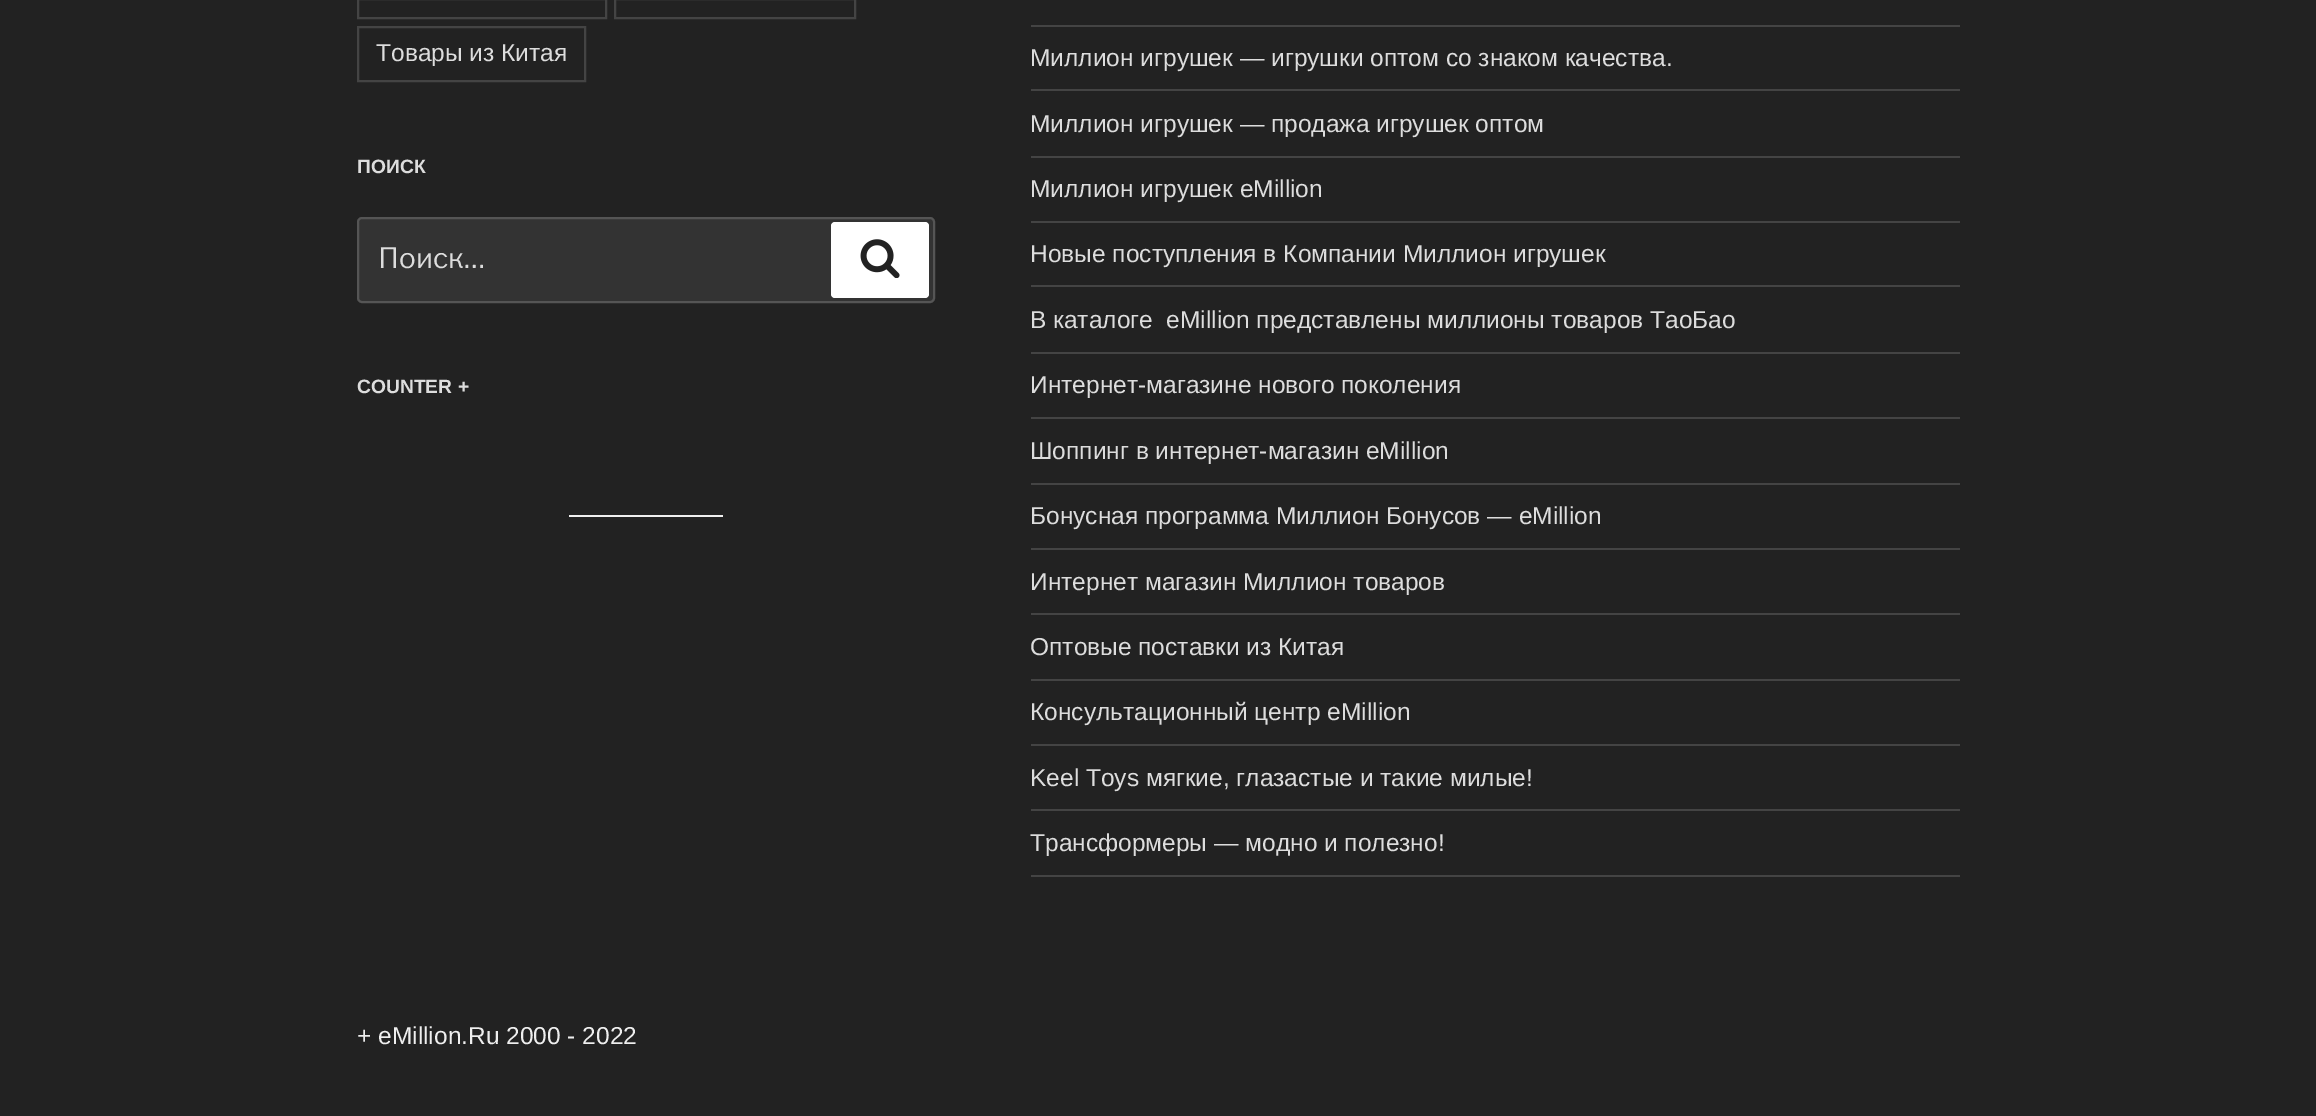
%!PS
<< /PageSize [2316 1116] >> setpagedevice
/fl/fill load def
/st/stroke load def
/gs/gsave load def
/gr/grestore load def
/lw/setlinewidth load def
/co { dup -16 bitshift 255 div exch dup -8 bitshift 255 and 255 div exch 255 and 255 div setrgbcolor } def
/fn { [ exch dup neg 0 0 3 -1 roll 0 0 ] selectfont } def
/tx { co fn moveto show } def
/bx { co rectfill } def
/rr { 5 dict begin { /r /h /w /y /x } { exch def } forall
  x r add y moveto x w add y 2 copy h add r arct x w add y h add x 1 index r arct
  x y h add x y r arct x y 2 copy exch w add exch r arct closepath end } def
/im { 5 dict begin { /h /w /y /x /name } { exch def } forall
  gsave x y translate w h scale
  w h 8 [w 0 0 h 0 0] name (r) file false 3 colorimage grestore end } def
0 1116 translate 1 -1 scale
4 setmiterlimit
0 0 2316 1116 16#222222 bx
16#444444 co
2 lw
358 -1 248 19 rectstroke
615 -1 240 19 rectstroke
358 27 227 54 rectstroke
16#333333 co
358 218 576 84 4 rr gs fl gr
16#555555 co
st
16#FFFFFF co
831 222 98 76 4 rr fl
(media/1.raw) 860 239 40 39 im
569 515 154 2 16#F0F0F0 bx
1031 25 929 2 16#444444 bx
1031 89 929 2 16#444444 bx
1031 156 929 2 16#444444 bx
1031 221 929 2 16#444444 bx
1031 285 929 2 16#444444 bx
1031 352 929 2 16#444444 bx
1031 417 929 2 16#444444 bx
1031 483 929 2 16#444444 bx
1031 548 929 2 16#444444 bx
1031 613 929 2 16#444444 bx
1031 679 929 2 16#444444 bx
1031 744 929 2 16#444444 bx
1031 809 929 2 16#444444 bx
1031 875 929 2 16#444444 bx
(Товары из Китая) 376 61 /LiberationSans-Regular 24.5 16#DDDDDD tx
(ПОИСК) 357 173 /LiberationSans-Bold 19.25 16#DDDDDD tx
(Поиск…) 378 268 /LibreFranklin-Regular 28 16#DDDDDD tx
(COUNTER +) 357 393 /LiberationSans-Bold 19.25 16#DDDDDD tx
(Миллион игрушек — игрушки оптом со знаком качества.) 1030 66 /LiberationSans-Regular 24.5 16#DDDDDD tx
(Миллион игрушек — продажа игрушек оптом) 1030 132 /LiberationSans-Regular 24.5 16#DDDDDD tx
(Миллион игрушек eMillion) 1030 197 /LiberationSans-Regular 24.5 16#DDDDDD tx
(Новые поступления в Компании Миллион игрушек) 1030 262 /LiberationSans-Regular 24.5 16#DDDDDD tx
(В каталоге  eMillion представлены миллионы товаров ТаоБао) 1030 328 /LiberationSans-Regular 24.5 16#DDDDDD tx
(Интернет-магазине нового поколения) 1030 393 /LiberationSans-Regular 24.5 16#DDDDDD tx
(Шоппинг в интернет-магазин eMillion) 1030 459 /LiberationSans-Regular 24.5 16#DDDDDD tx
(Бонусная программа Миллион Бонусов — eMillion) 1030 524 /LiberationSans-Regular 24.5 16#DDDDDD tx
(Интернет магазин Миллион товаров) 1030 590 /LiberationSans-Regular 24.5 16#DDDDDD tx
(Оптовые поставки из Китая) 1030 655 /LiberationSans-Regular 24.5 16#DDDDDD tx
(Консультационный центр eMillion) 1030 720 /LiberationSans-Regular 24.5 16#DDDDDD tx
(Keel Toys мягкие, глазастые и такие милые!) 1030 786 /LiberationSans-Regular 24.5 16#DDDDDD tx
(Трансформеры — модно и полезно!) 1030 851 /LiberationSans-Regular 24.5 16#DDDDDD tx
(+ eMillion.Ru 2000 - 2022) 357 1044 /LiberationSans-Regular 24.5 16#EEEEEE tx
showpage
